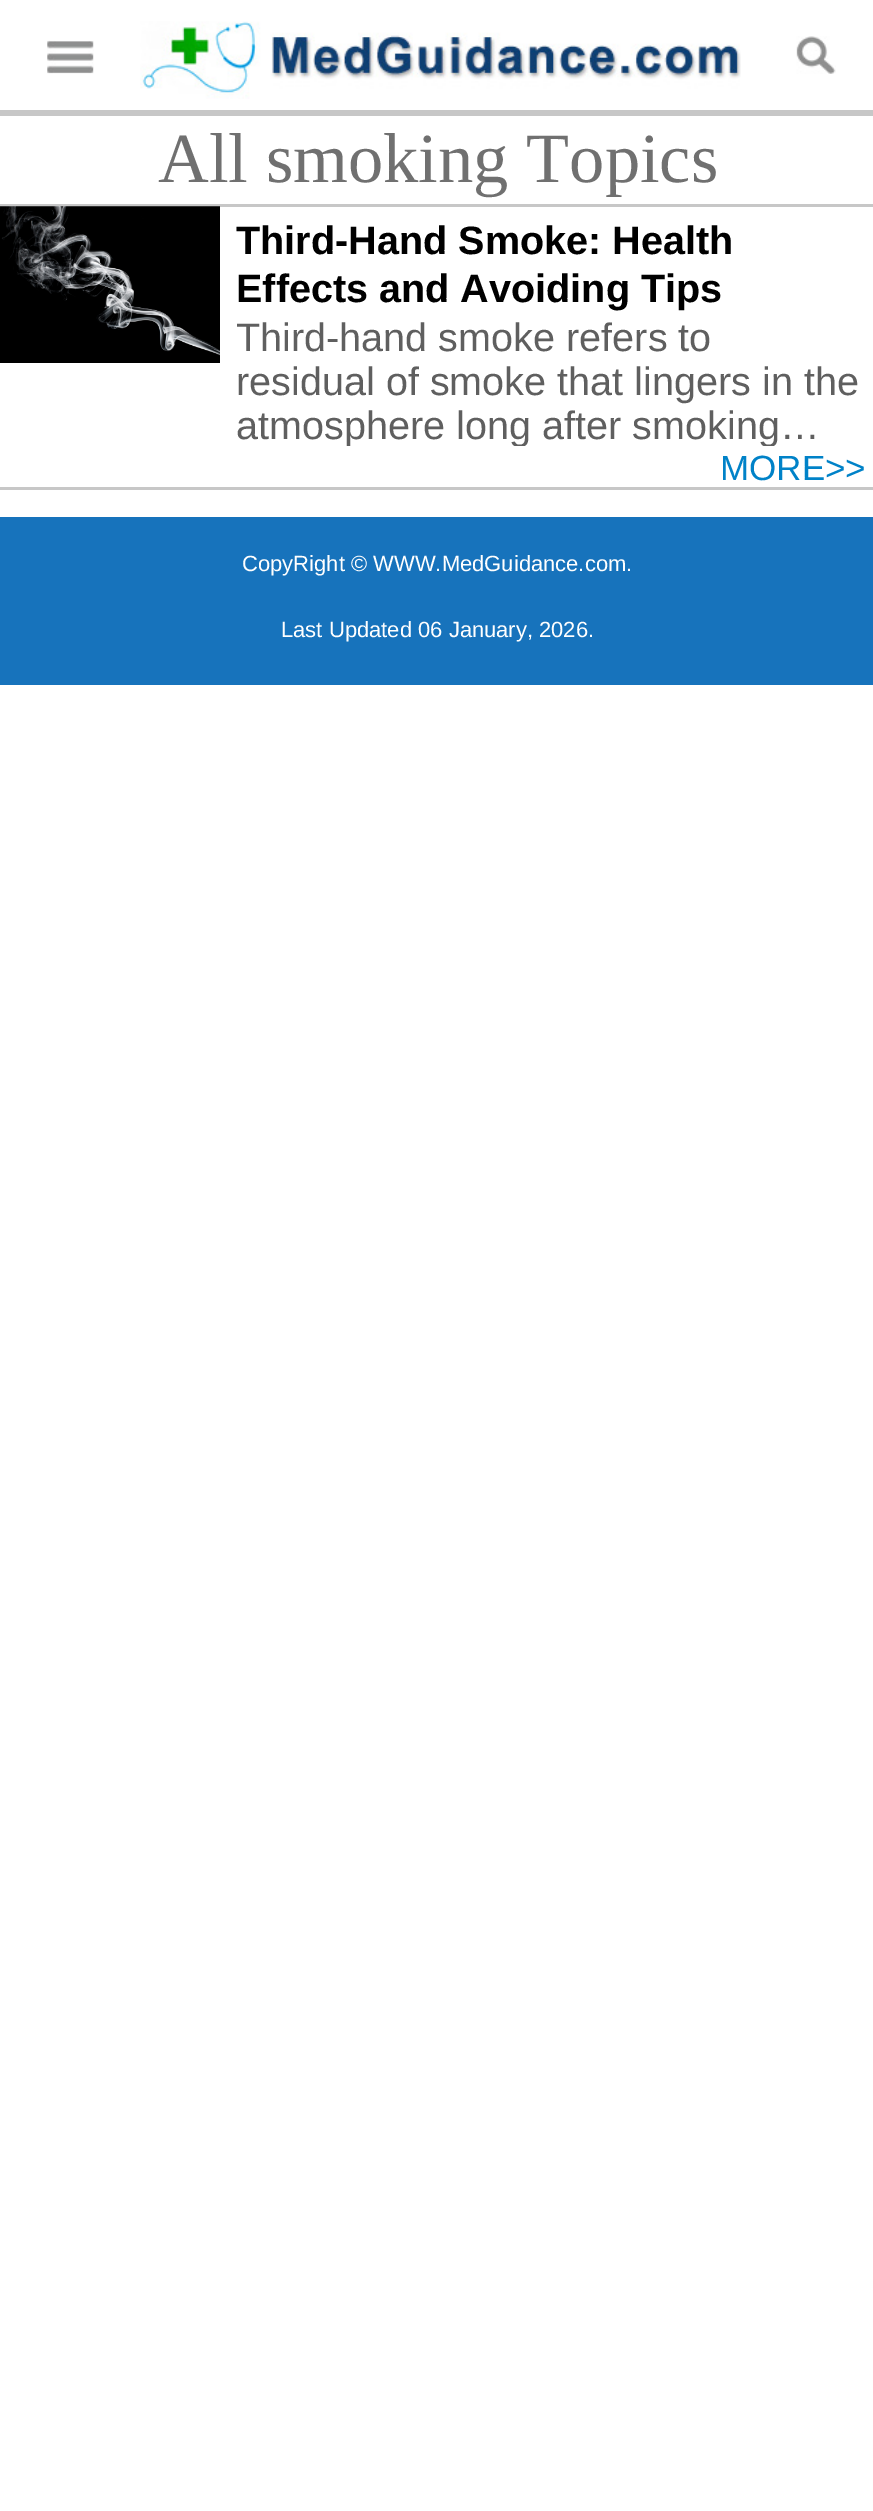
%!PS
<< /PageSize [873 2511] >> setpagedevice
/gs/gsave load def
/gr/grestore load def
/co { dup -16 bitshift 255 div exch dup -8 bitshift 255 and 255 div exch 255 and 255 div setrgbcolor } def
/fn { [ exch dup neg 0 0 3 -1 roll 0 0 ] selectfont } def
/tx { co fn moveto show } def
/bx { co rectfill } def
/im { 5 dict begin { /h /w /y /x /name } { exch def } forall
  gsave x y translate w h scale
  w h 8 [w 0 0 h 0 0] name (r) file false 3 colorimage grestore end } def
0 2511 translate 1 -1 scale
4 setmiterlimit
0 0 873 2511 16#FFFFFF bx
0 110 873 6 16#C7C7C7 bx
(media/1.raw) 47 40 47 34 im
(media/2.raw) 140 21 601 78 im
(media/3.raw) 796 36 40 38 im
0 204 873 3 16#C7C7C7 bx
0 487 873 3 16#C7C7C7 bx
(media/4.raw) 0 206 220 157 im
0 517 873 168 16#1773BC bx
(All smoking Topics) 158 182 /LiberationSerif-Regular 70.5 16#707070 tx
(Third-Hand Smoke: Health) 236 254 /LiberationSans-Bold 39.6 16#000000 tx
(Effects and Avoiding Tips) 236 302 /LiberationSans-Bold 39.6 16#000000 tx
(Third-hand smoke refers to) 236 351 /LiberationSans-Regular 39.6 16#5F5F5F tx
(residual of smoke that lingers in the) 236 395 /LiberationSans-Regular 39.6 16#5F5F5F tx
gs
237 314 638 132 rectclip
(atmosphere long after smoking…) 236 439 /LiberationSans-Regular 39.6 16#5F5F5F tx
gr
(MORE>>) 720 480 /LiberationSans-Regular 35 16#0082C8 tx
(CopyRight © WWW.MedGuidance.com.) 242 571 /LiberationSans-Regular 22 16#FFFFFF tx
(Last Updated 06 January, 2026.) 281 637 /LiberationSans-Regular 22 16#FFFFFF tx
showpage
